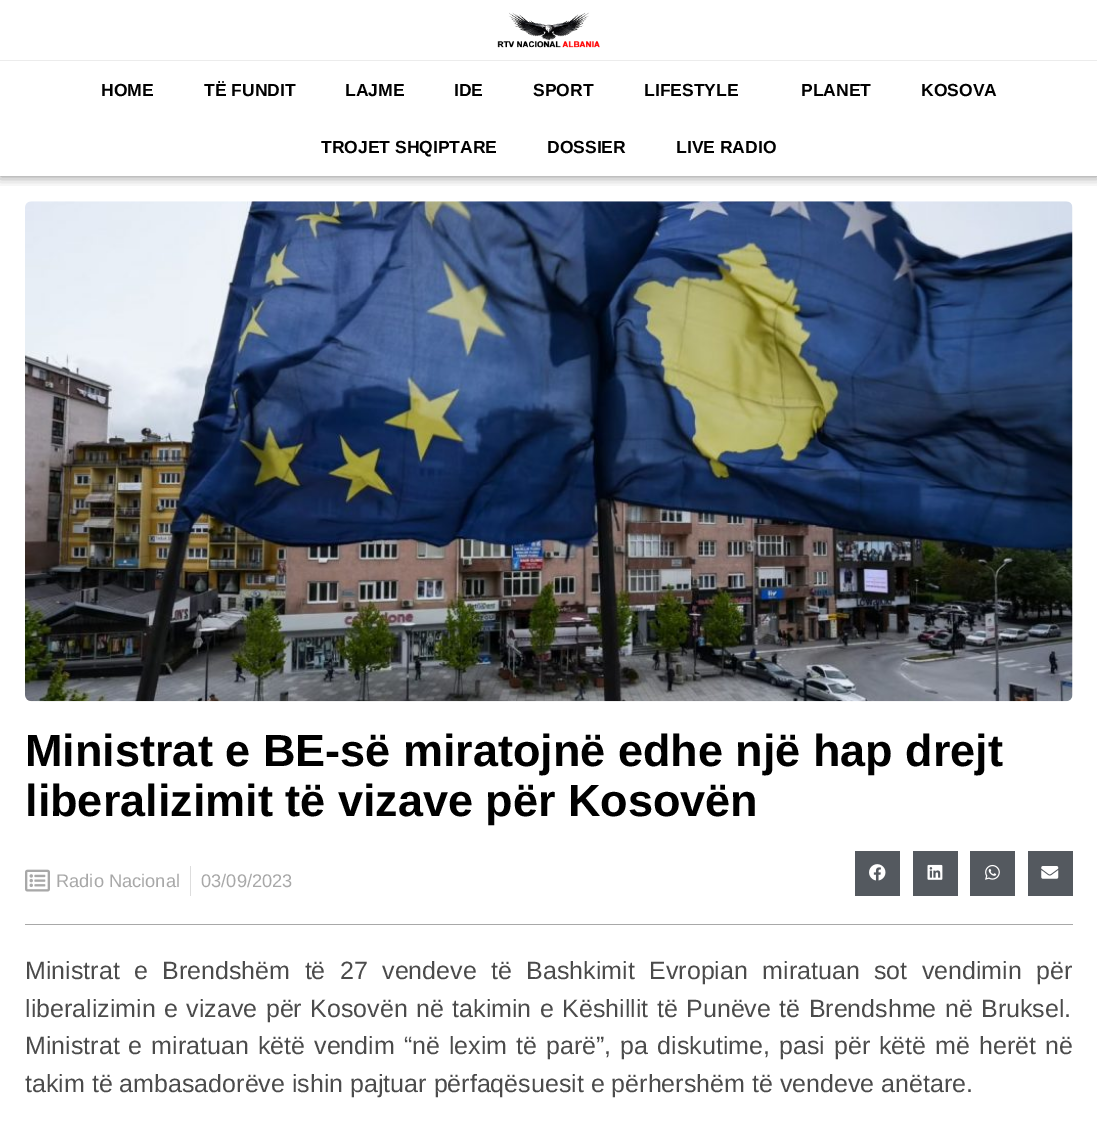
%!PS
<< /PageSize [1097 1124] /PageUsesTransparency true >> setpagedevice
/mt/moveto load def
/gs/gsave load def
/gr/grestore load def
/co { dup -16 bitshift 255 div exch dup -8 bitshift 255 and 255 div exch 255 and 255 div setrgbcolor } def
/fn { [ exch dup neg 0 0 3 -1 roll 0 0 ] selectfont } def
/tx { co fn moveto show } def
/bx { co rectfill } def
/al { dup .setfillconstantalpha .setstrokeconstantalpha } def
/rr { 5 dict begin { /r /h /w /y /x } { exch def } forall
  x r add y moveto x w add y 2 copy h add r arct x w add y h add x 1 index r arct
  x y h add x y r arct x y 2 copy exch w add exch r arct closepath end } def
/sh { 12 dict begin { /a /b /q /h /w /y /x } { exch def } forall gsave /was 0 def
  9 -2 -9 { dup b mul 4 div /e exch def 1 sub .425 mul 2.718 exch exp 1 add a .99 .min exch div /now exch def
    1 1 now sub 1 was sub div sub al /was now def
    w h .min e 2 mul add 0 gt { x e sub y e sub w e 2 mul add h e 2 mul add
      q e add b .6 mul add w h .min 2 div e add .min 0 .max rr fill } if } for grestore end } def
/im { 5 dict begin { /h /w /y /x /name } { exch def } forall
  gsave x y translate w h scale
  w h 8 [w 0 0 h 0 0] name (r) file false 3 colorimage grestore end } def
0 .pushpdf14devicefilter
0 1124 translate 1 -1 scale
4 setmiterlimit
0 0 1097 1124 16#FFFFFF bx
gs
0 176 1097 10 rectclip
16#000000 co
0 0 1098 176 0 6 .5 sh
gr
(media/1.raw) 497 12 103 36 im
0 60 1097 1 16#ECECEC bx
(media/2.raw) 25 201 1048 501 im
(media/3.raw) 25 869 25 23 im
190 866 1 30 16#DDDDDD bx
855 851 45 45 16#54595F bx
(media/4.raw) 869 864 17 17 im
913 851 45 45 16#54595F bx
(media/5.raw) 927 864 16 16 im
970 851 45 45 16#54595F bx
(media/6.raw) 985 864 15 16 im
1028 851 45 45 16#54595F bx
(media/7.raw) 1041 866 18 13 im
25 924 1048 1 16#A8A8A8 bx
(HOME) 101 96 /LiberationSans-Bold 17.5 16#000000 tx
(TË FUNDIT) 204 96 /LiberationSans-Bold 17.5 16#000000 tx
(LAJME) 345 96 /LiberationSans-Bold 17.5 16#000000 tx
(IDE) 454 96 /LiberationSans-Bold 17.5 16#000000 tx
(SPORT) 533 96 /LiberationSans-Bold 17.5 16#000000 tx
(LIFESTYLE) 644 96 /LiberationSans-Bold 17.5 16#000000 tx
(PLANET) 801 96 /LiberationSans-Bold 17.5 16#000000 tx
(KOSOVA) 921 96 /LiberationSans-Bold 17.5 16#000000 tx
(TROJET SHQIPTARE) 321 153 /LiberationSans-Bold 17.5 16#000000 tx
(DOSSIER) 547 153 /LiberationSans-Bold 17.5 16#000000 tx
(LIVE RADIO) 676 153 /LiberationSans-Bold 17.5 16#000000 tx
(Ministrat e BE-së miratojnë edhe një hap drejt) 25 766 /LiberationSans-Bold 45 16#000000 tx
(liberalizimit të vizave për Kosovën) 25 816 /LiberationSans-Bold 45 16#000000 tx
(Radio Nacional) 56 887 /LiberationSans-Regular 18.25 16#A8A8A8 tx
(03/09/2023) 201 887 /LiberationSans-Regular 18.25 16#A8A8A8 tx
/LiberationSans-Regular 25 fn
16#4B4B4B co
25 979 mt 7.5 0 32 (Ministrat e Brendshëm të 27 vendeve të Bashkimit Evropian miratuan sot vendimin për) widthshow
25 1017 mt 1.5 0 32 (liberalizimin e vizave për Kosovën në takimin e Këshillit të Punëve të Brendshme në Bruksel.) widthshow
25 1054 mt 2.1 0 32 (Ministrat e miratuan këtë vendim “në lexim të parë”, pa diskutime, pasi për këtë më herët në) widthshow
(takim të ambasadorëve ishin pajtuar përfaqësuesit e përhershëm të vendeve anëtare.) 25 1092 /LiberationSans-Regular 25 16#4B4B4B tx
.poppdf14devicefilter showpage
